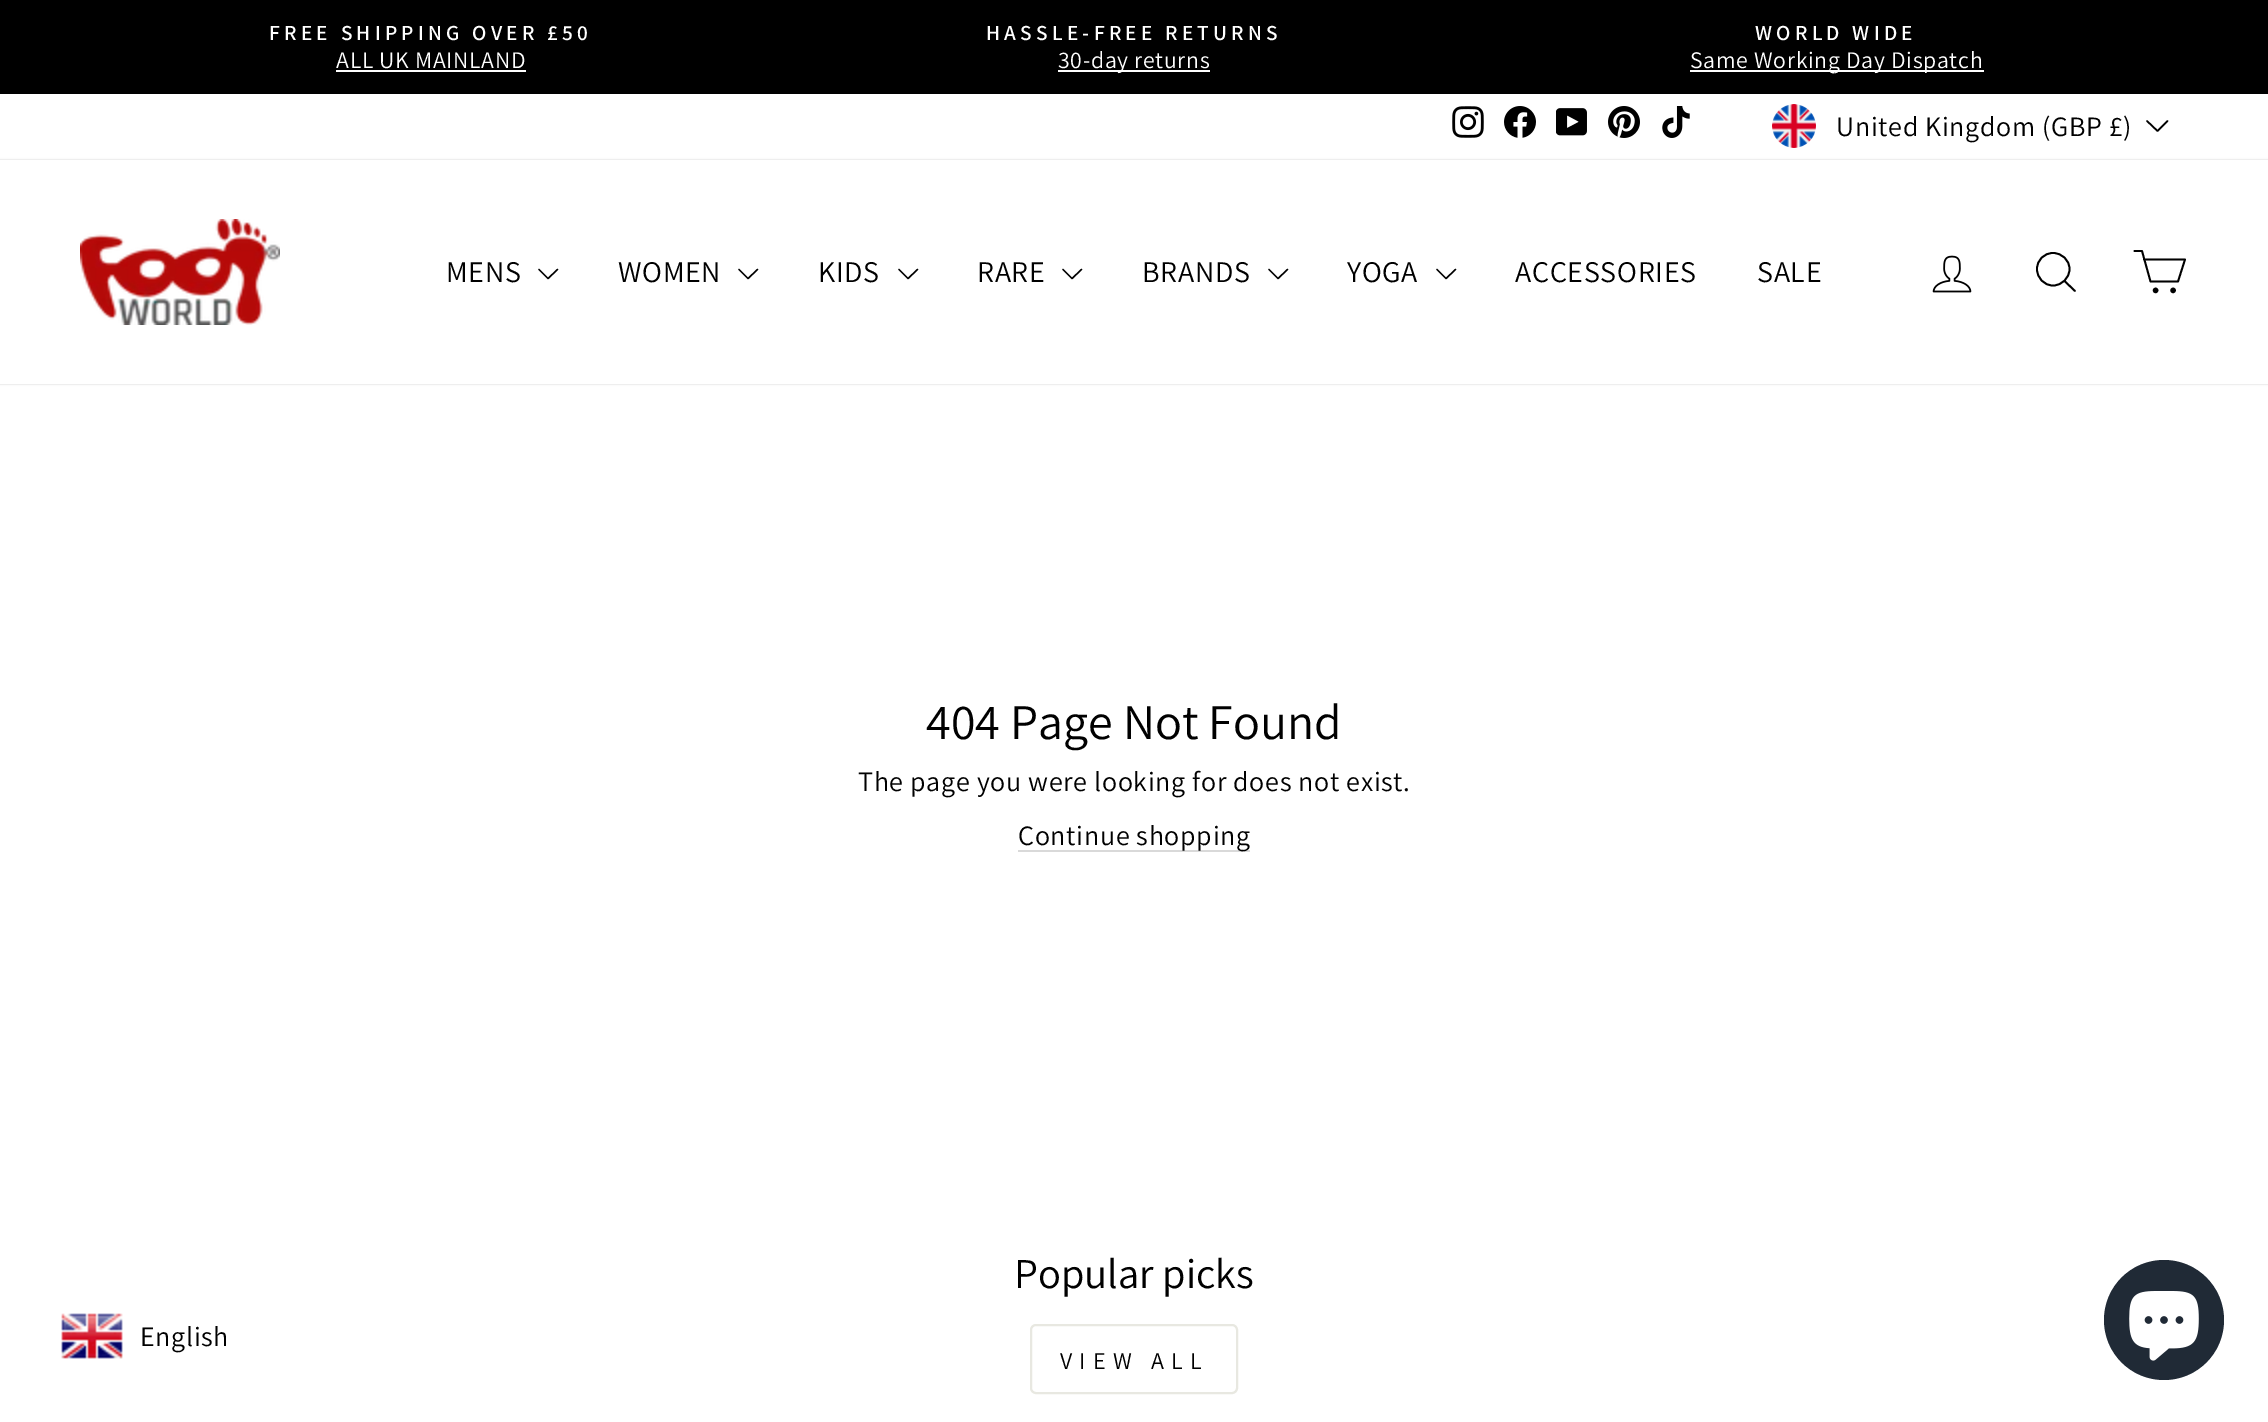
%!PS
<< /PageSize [2268 1422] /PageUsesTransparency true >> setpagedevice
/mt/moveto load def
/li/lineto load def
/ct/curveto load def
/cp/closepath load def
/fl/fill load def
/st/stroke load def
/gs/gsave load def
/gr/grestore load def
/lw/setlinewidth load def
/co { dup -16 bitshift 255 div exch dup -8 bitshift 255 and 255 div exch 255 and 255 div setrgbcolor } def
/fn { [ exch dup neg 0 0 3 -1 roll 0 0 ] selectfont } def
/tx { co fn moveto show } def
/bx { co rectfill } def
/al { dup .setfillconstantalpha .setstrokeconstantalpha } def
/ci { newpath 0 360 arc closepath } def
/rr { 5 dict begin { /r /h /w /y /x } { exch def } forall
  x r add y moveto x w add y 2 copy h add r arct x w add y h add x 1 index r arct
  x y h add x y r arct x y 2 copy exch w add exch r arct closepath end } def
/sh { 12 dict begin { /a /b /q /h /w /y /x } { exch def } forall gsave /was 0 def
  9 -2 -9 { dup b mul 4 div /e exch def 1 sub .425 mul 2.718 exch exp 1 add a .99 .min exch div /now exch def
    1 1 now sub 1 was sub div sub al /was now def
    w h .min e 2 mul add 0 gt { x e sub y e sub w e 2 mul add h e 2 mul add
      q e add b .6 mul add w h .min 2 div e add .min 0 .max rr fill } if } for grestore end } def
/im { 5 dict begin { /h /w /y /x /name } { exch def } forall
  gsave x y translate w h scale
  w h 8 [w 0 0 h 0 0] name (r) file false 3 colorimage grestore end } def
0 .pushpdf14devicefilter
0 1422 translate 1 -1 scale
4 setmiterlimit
0 0 2268 1422 16#FFFFFF bx
(media/1.raw) 61 1313 62 46 im
0 0 2268 94 16#000000 bx
336 70 190 2 16#FFFFFF bx
1058 70 152 2 16#FFFFFF bx
1690 70 294 2 16#FFFFFF bx
(media/2.raw) 1452 106 32 32 im
(media/3.raw) 1504 106 32 32 im
(media/4.raw) 1556 108 31 28 im
(media/5.raw) 1608 106 32 32 im
(media/6.raw) 1662 106 28 32 im
(media/7.raw) 1772 104 44 44 im
16#000000 co
1.6 lw
1 setlinecap
1 setlinejoin
2147 121 mt 2157.5 131 li 2167.5 121 li st
gs
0 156 mt 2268 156 li 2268 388 li 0 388 li cp 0 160 mt 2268 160 li 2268 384 li 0 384 li cp eoclip newpath
0 160 2268 224 0 1 .2 sh
gr
(media/8.raw) 80 219 200 106 im
1.4 lw
539 269.5 mt 548 278.5 li 557.5 269.5 li st
739 269.5 mt 748 278.5 li 757.5 269.5 li st
899 269.5 mt 908 278.5 li 917.5 269.5 li st
1063 269.5 mt 1072 278.5 li 1081.5 269.5 li st
1269 269.5 mt 1278 278.5 li 1287.5 269.5 li st
1437 269.5 mt 1446 278.5 li 1455.5 269.5 li st
(media/9.raw) 1932 255 40 38 im
1.8 lw
2069.5 269 mt 2069.5 278 2062 285.5 2053 285.5 ct 2044 285.5 2037 278 2037 269 ct 2037 260 2044 253 2053 253 ct 2062 253 2069.5 260 2069.5 269 ct cp 2075 291 mt 2064.5 281 li st
2144 259.5 mt 2185 259.5 li 2178 281.5 li 2150.5 281.5 li 2142 251 li 2134.5 251 li st
2155.6 290.4 1.8 ci gs fl gr
0 setlinecap
0 setlinejoin
st
2173.1 290.4 1.8 ci gs fl gr
st
1018 850 232 2 16#D9D9D9 bx
16#E8E8E1 co
2 lw
1031 1325 206 68 5 rr st
16#202A36 co
2164 1320 60 ci fl
(media/10.raw) 2129 1291 70 70 im
/Assistant-Regular 28 fn
16#000000 co
140 1346 mt .7 0 (English) ashow
/Assistant-SemiBold 21.4 fn
16#FFFFFF co
269 40 mt 4.25 0 (FREE SHIPPING OVER £50) ashow
/Assistant-Regular 23.75 fn
336 68 mt .7 0 (ALL UK MAINLAND) ashow
/Assistant-SemiBold 21.4 fn
986 40 mt 4.25 0 (HASSLE-FREE RETURNS) ashow
/Assistant-Regular 23.75 fn
1058 68 mt .7 0 (30-day returns) ashow
/Assistant-SemiBold 21.4 fn
1755 40 mt 4.25 0 (WORLD WIDE) ashow
/Assistant-Regular 23.75 fn
1690 68 mt .7 0 (Same Working Day Dispatch) ashow
/Assistant-Regular 28 fn
16#000000 co
1836 136 mt .7 0 (United Kingdom \(GBP £\)) ashow
/Assistant-Regular 30 fn
446 282 mt .7 0 (MENS) ashow
618 282 mt .7 0 (WOMEN) ashow
818 282 mt .7 0 (KIDS) ashow
977 282 mt .7 0 (RARE) ashow
1142 282 mt .7 0 (BRANDS) ashow
1347 282 mt .7 0 (YOGA) ashow
1515 282 mt .7 0 (ACCESSORIES) ashow
1757 282 mt .7 0 (SALE) ashow
(404 Page Not Found) 926 739 /Assistant-Regular 50 16#000000 tx
/Assistant-Regular 28 fn
858 791 mt .7 0 (The page you were looking for does not exist.) ashow
1018 845 mt .7 0 (Continue shopping) ashow
(Popular picks) 1014 1288 /Assistant-Regular 42.5 16#000000 tx
/Assistant-Regular 24 fn
1060 1369 mt 7.25 0 (VIEW ALL) ashow
.poppdf14devicefilter showpage
